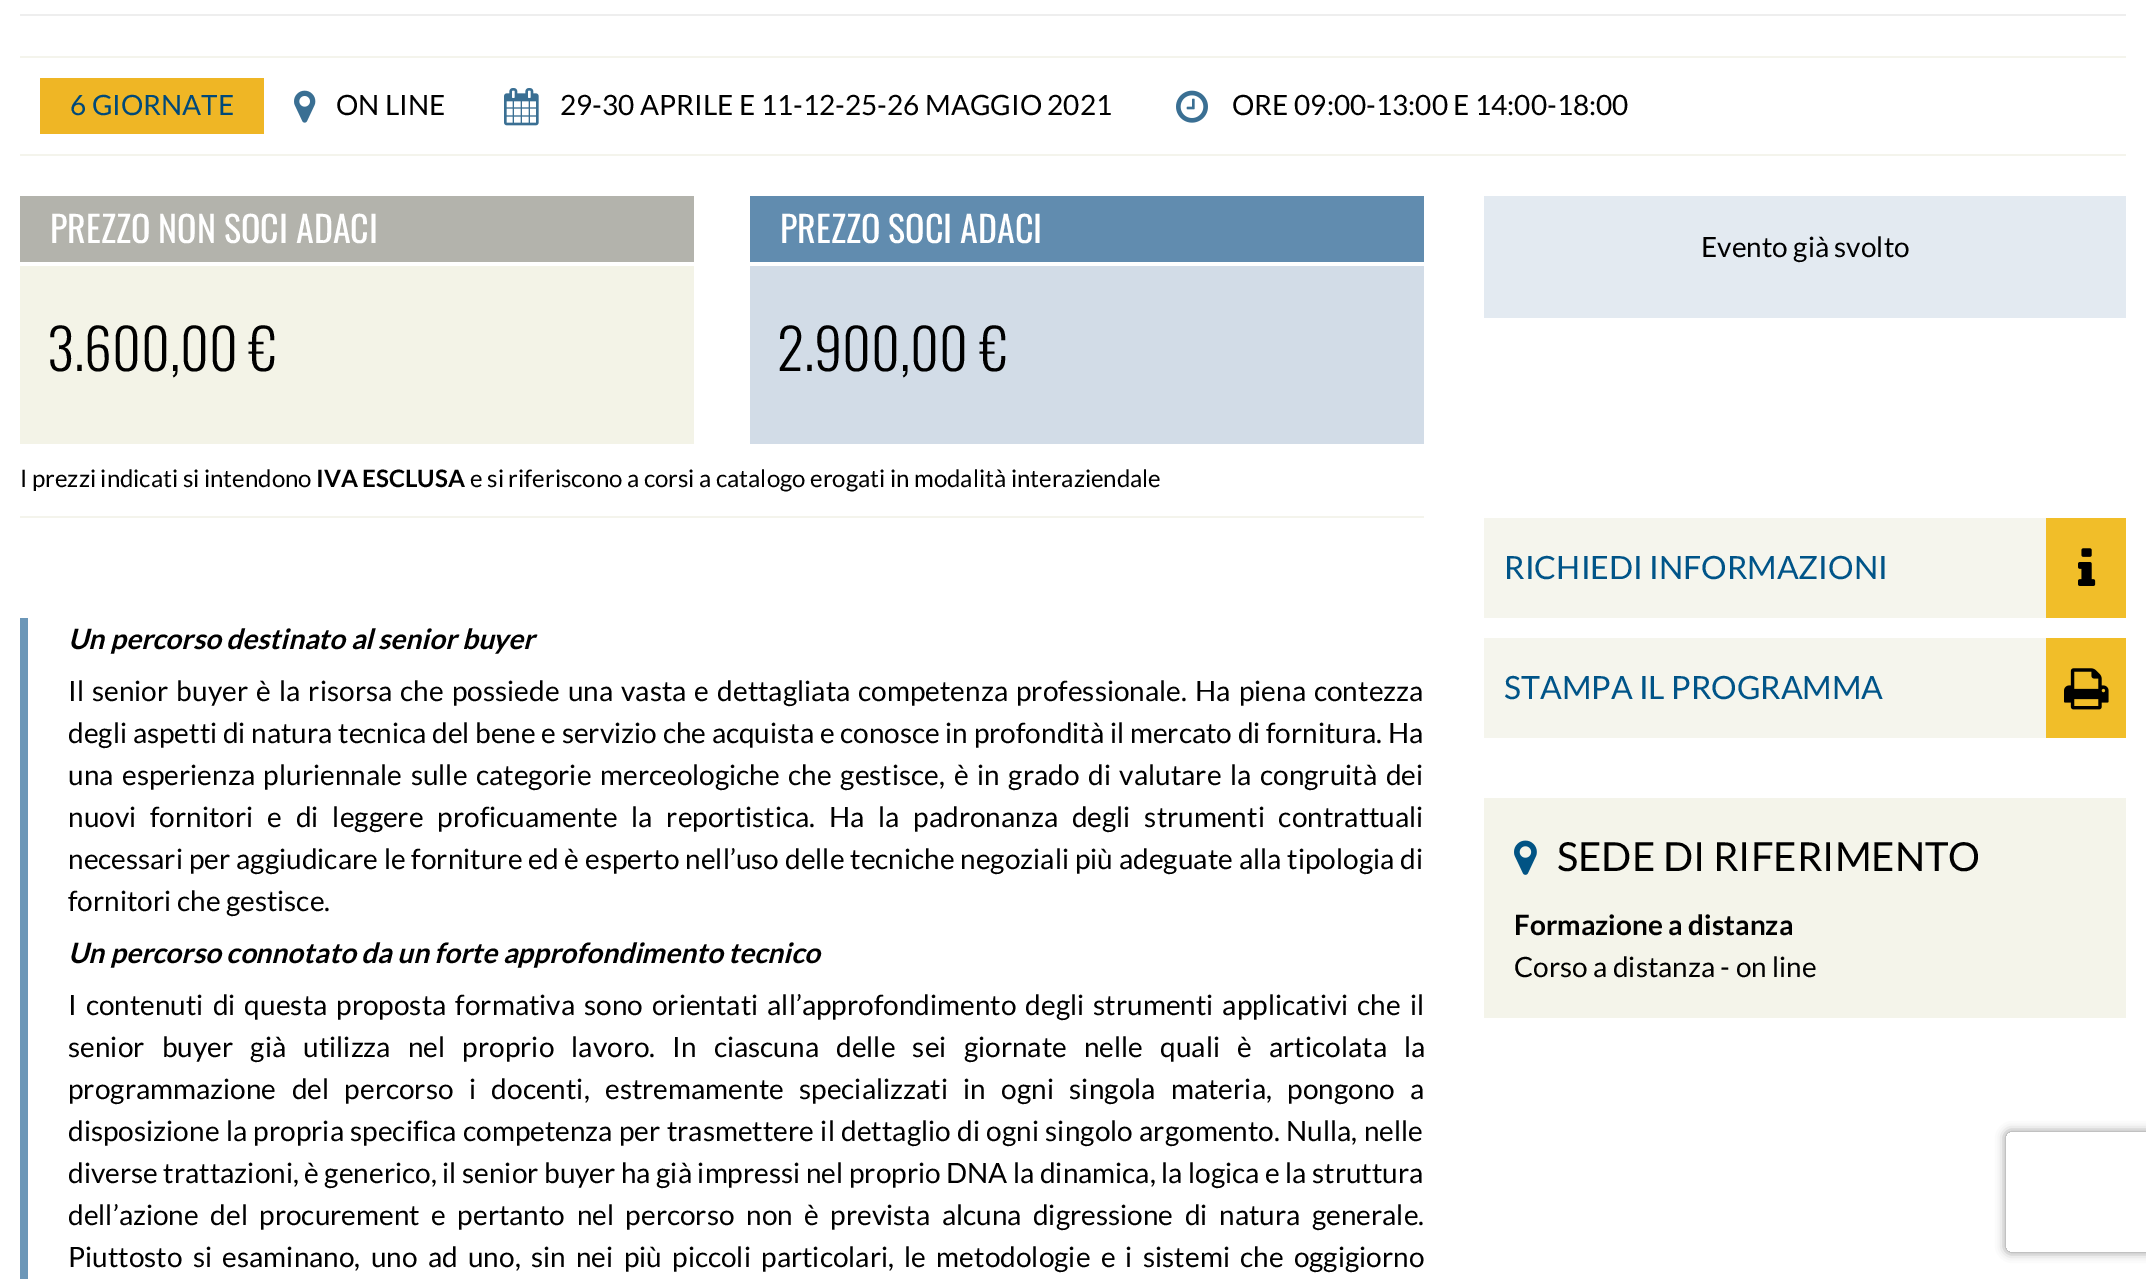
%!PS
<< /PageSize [2146 1279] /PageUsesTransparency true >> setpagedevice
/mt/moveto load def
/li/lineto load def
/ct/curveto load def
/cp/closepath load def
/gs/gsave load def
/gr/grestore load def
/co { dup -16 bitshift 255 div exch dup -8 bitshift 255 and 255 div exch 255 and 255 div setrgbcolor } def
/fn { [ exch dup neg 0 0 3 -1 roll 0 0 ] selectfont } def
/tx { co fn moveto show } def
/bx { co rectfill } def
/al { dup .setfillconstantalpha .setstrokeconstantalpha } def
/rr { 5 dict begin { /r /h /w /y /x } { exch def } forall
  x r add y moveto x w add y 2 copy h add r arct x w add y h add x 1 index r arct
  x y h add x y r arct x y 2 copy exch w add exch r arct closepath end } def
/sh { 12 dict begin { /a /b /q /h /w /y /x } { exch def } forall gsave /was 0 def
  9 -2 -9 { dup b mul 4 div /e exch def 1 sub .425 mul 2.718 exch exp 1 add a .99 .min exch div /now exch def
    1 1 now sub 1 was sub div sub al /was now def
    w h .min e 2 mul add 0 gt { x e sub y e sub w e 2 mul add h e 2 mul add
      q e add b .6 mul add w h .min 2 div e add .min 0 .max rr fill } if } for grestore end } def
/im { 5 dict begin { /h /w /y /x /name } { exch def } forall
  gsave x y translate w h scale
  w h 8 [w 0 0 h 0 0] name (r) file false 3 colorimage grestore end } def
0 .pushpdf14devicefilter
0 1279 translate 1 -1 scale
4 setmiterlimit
0 0 2146 1279 16#FFFFFF bx
20 14 2106 2 16#EEEEEE bx
20 56 2106 2 16#F4F4EC bx
20 154 2106 2 16#F4F4EC bx
40 78 224 56 16#EFB625 bx
(media/1.raw) 294 90 22 33 im
(media/2.raw) 504 88 35 38 im
(media/3.raw) 1176 90 32 33 im
20 266 674 178 16#F3F3E7 bx
20 196 674 66 16#B3B3AC bx
750 266 674 178 16#D2DCE7 bx
750 196 674 66 16#618CAF bx
20 516 1404 2 16#F4F4EC bx
1484 196 642 122 16#E3EAF1 bx
20 618 8 661 16#6C97B8 bx
1484 518 562 100 16#F5F5ED bx
2046 518 80 100 16#F1BE29 bx
(media/4.raw) 2078 548 18 38 im
1484 638 562 100 16#F5F5ED bx
2046 638 80 100 16#F1BE29 bx
(media/5.raw) 2064 668 45 42 im
1484 798 642 220 16#F4F4EA bx
(media/6.raw) 1514 840 23 35 im
gs
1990 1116 mt 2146 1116 li 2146 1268 li 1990 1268 li cp 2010 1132 mt 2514 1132 li 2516 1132 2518 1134 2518 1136 ct 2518 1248 li 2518 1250 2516 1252 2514 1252 ct 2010 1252 li 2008 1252 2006 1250 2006 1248 ct 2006 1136 li 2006 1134 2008 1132 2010 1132 ct cp eoclip newpath
16#808080 co
2006 1132 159 120 4 5 1 sh
gr
(6 GIORNATE) 70 115 /Lato-Regular 28 16#004979 tx
(ON LINE) 336 115 /Lato-Regular 28 16#000000 tx
(29-30 APRILE E 11-12-25-26 MAGGIO 2021) 560 115 /Lato-Regular 28 16#000000 tx
(ORE 09:00-13:00 E 14:00-18:00) 1232 115 /Lato-Regular 28 16#000000 tx
(PREZZO NON SOCI ADACI) 50 243 /Oswald-Regular 36 16#FFFFFF tx
(3.600,00 €) 47 371 /Oswald-Light 56 16#000000 tx
(PREZZO SOCI ADACI) 780 243 /Oswald-Regular 36 16#FFFFFF tx
(2.900,00 €) 777 371 /Oswald-Light 56 16#000000 tx
(I prezzi indicati si intendono) 20 487 /Lato-Regular 24 16#000000 tx
(IVA ESCLUSA) 316 487 /Lato-Bold 24 16#000000 tx
(e si riferiscono a corsi a catalogo erogati in modalità interaziendale) 470 487 /Lato-Regular 24 16#000000 tx
(Evento già svolto) 1701 257 /Lato-Regular 28 16#000000 tx
(Un percorso destinato al senior buyer) 68 649 /Lato-BoldItalic 28 16#000000 tx
/Lato-Regular 28 fn
68 701 mt 2.75 0 32 (Il senior buyer è la risorsa che possiede una vasta e dettagliata competenza professionale. Ha piena contezza) widthshow
68 743 mt .25 0 32 (degli aspetti di natura tecnica del bene e servizio che acquista e conosce in profondità il mercato di fornitura. Ha) widthshow
68 785 mt 3.25 0 32 (una esperienza pluriennale sulle categorie merceologiche che gestisce, è in grado di valutare la congruità dei) widthshow
68 827 mt 8.4 0 32 (nuovi fornitori e di leggere proficuamente la reportistica. Ha la padronanza degli strumenti contrattuali) widthshow
68 869 mt .5 0 32 (necessari per aggiudicare le forniture ed è esperto nell’uso delle tecniche negoziali più adeguate alla tipologia di) widthshow
(fornitori che gestisce.) 68 911 /Lato-Regular 28 16#000000 tx
(Un percorso connotato da un forte approfondimento tecnico) 68 963 /Lato-BoldItalic 28 16#000000 tx
/Lato-Regular 28 fn
68 1015 mt 3.6 0 32 (I contenuti di questa proposta formativa sono orientati all’approfondimento degli strumenti applicativi che il) widthshow
68 1057 mt 11.75 0 32 (senior buyer già utilizza nel proprio lavoro. In ciascuna delle sei giornate nelle quali è articolata la) widthshow
68 1099 mt 10 0 32 (programmazione del percorso i docenti, estremamente specializzati in ogni singola materia, pongono a) widthshow
68 1141 mt 1 0 32 (disposizione la propria specifica competenza per trasmettere il dettaglio di ogni singolo argomento. Nulla, nelle) widthshow
68 1183 mt .1 0 32 (diverse trattazioni, è generico, il senior buyer ha già impressi nel proprio DNA la dinamica, la logica e la struttura) widthshow
68 1225 mt 6.1 0 32 (dell’azione del procurement e pertanto nel percorso non è prevista alcuna digressione di natura generale.) widthshow
68 1267 mt 4.9 0 32 (Piuttosto si esaminano, uno ad uno, sin nei più piccoli particolari, le metodologie e i sistemi che oggigiorno) widthshow
(RICHIEDI INFORMAZIONI) 1504 579 /Lato-Regular 32 16#005488 tx
(STAMPA IL PROGRAMMA) 1504 699 /Lato-Regular 32 16#005488 tx
(SEDE DI RIFERIMENTO) 1557 871 /Lato-Regular 40 16#000000 tx
(Formazione a distanza) 1514 935 /Lato-Bold 28 16#000000 tx
(Corso a distanza - on line) 1514 977 /Lato-Regular 28 16#000000 tx
.poppdf14devicefilter showpage
